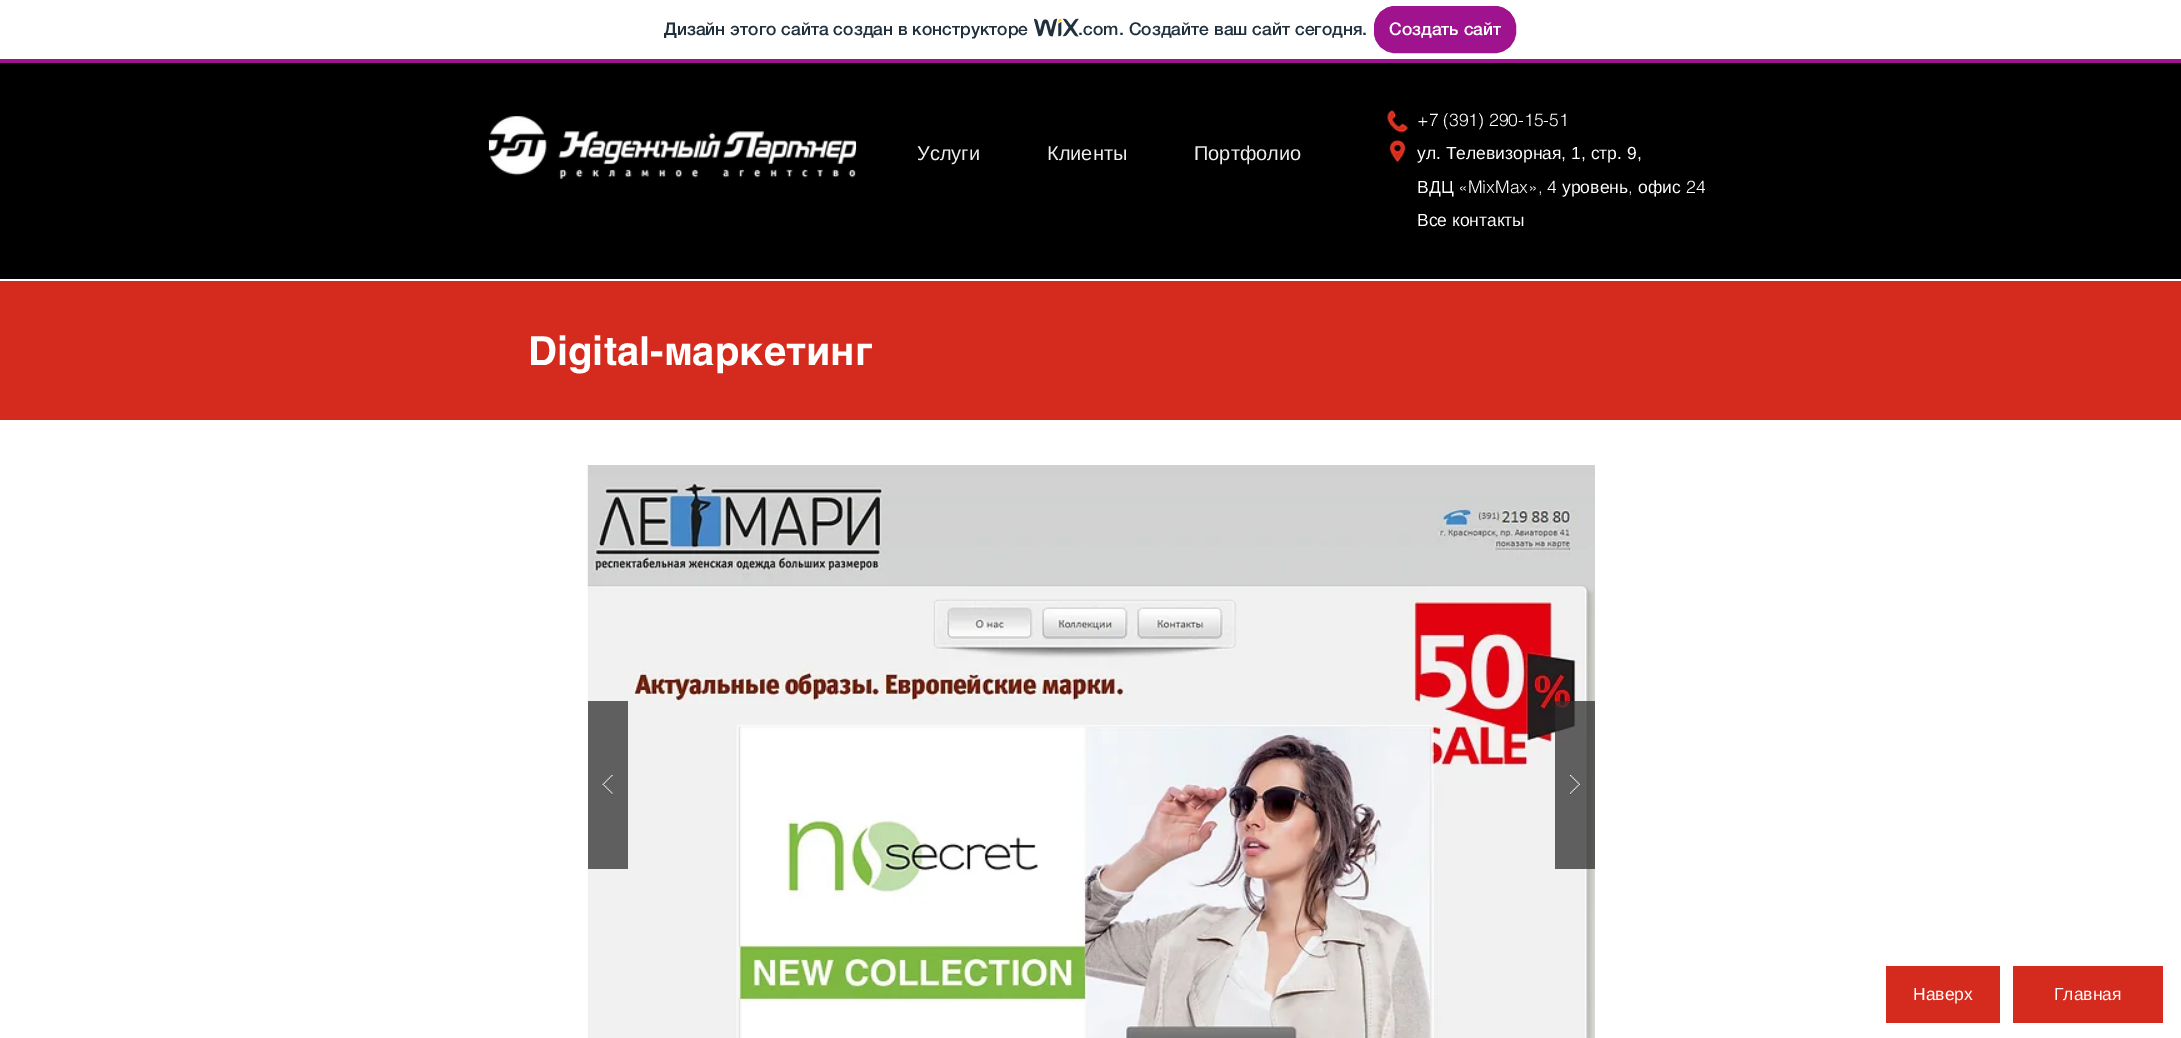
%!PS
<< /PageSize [2181 1038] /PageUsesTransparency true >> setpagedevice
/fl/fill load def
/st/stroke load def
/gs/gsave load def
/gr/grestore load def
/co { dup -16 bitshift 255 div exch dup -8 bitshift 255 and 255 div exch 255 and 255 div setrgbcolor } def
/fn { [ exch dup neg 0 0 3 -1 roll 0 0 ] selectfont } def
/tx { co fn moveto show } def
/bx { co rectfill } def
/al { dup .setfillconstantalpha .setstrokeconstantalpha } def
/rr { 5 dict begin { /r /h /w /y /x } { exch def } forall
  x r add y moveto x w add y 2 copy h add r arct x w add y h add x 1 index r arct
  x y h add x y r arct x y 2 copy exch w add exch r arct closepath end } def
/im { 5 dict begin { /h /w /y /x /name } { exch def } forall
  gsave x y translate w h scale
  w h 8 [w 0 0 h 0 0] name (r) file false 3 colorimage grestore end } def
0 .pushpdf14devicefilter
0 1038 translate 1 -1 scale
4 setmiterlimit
0 0 2181 1038 16#FFFFFF bx
0 59 2181 4 16#A0138E bx
(media/1.raw) 1034 18 45 19 im
1374.5 6.5 141 46 20.5 rr gs fl gr
st
0 63 2181 216 16#000000 bx
(media/2.raw) 488 116 369 63 im
(media/3.raw) 1387 109 21 24 im
(media/4.raw) 1389 139 17 24 im
0 281 2181 139 16#D52B1E bx
(media/5.raw) 587 465 1008 573 im
588 701 40 168 16#605F5F bx
(media/6.raw) 602 775 11 20 im
0.75 al
1555 701 40 168 16#2F2E2E bx
1 al
(media/7.raw) 1570 775 10 20 im
1886 966 114 57 16#D52B1E bx
2013 966 150 57 16#D52B1E bx
(Дизайн этого сайта создан в конструкторе) 664 35 /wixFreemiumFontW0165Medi-Medium 17.5 16#20303C tx
(.com) 1078 35 /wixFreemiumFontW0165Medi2-Medium 17.5 16#20303C tx
(. Создайте ваш сайт сегодня.) 1119 35 /wixFreemiumFontW0165Medi-Medium 17.5 16#20303C tx
(Создать сайт) 1389 35 /wixFreemiumFontW0165Medi-Medium 17.5 16#FFFFFF tx
(+7 \(391\) 290-15-51) 1417 126 /helvetica-Light 17.5 16#FFFFFF tx
(ул. Телевизорная, 1, стр. 9,) 1417 159 /LiberationSans-Regular 17.5 16#FFFFFF tx
(ВДЦ) 1417 193 /LiberationSans-Regular 17.5 16#FFFFFF tx
(«MixMax», 4) 1458 193 /helvetica-Light 17.5 16#FFFFFF tx
(уровень) 1562 193 /LiberationSans-Regular 17.5 16#FFFFFF tx
(,) 1628 193 /helvetica-Light 17.5 16#FFFFFF tx
(офис) 1638 193 /LiberationSans-Regular 17.5 16#FFFFFF tx
(24) 1686 193 /helvetica-Light 17.5 16#FFFFFF tx
(Все контакты) 1417 226 /LiberationSans-Regular 17.5 16#FFFFFF tx
(Услуги) 917 160 /LiberationSans-Regular 20 16#EEEEEE tx
(Клиенты) 1047 160 /LiberationSans-Regular 20 16#EEEEEE tx
(Портфолио) 1194 160 /LiberationSans-Regular 20 16#EEEEEE tx
(Digital-маркетинг) 528 365 /helvetica-Bold 40 16#FFFFFF tx
(Наверх) 1913 1000 /LiberationSans-Regular 17.5 16#FFFFFF tx
(Главная) 2054 1000 /LiberationSans-Regular 17.5 16#FFFFFF tx
.poppdf14devicefilter showpage
